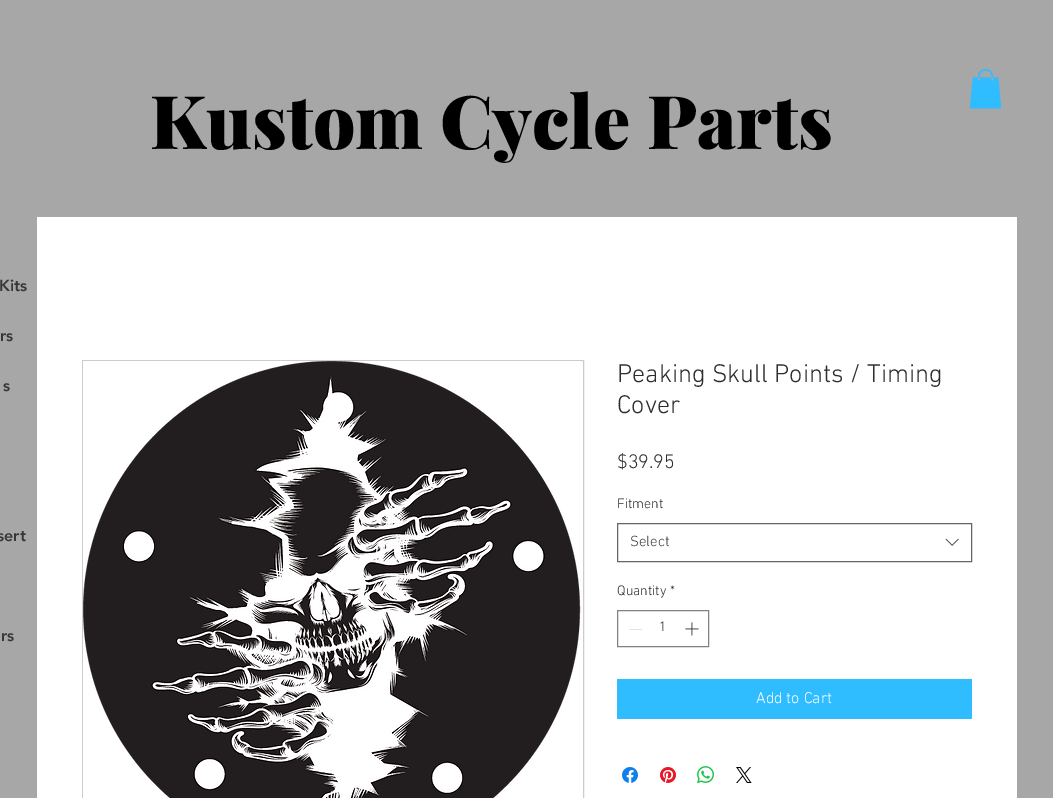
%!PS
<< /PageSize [1053 798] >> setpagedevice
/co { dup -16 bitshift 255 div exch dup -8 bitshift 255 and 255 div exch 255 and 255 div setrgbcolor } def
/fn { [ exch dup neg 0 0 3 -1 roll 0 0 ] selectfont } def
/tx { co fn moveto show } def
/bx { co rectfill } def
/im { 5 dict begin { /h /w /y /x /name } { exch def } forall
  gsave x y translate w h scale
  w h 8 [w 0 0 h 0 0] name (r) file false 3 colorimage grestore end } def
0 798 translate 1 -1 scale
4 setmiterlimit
0 0 1053 798 16#A7A7A7 bx
(media/1.raw) 969 69 33 40 im
37 217 980 581 16#FFFFFF bx
16#CCCCCC co
82.5 360.5 501 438 rectstroke
(media/2.raw) 83 361 498 437 im
16#666666 co
617.5 523.5 354 38 rectstroke
(media/3.raw) 945 538 14 8 im
16#828282 co
617.5 610.5 91 36 rectstroke
629 629 13 1 16#E3E3E3 bx
(media/4.raw) 685 622 14 14 im
617 679 355 40 16#30BDFF bx
(media/5.raw) 622 767 16 16 im
(media/6.raw) 660 767 16 16 im
(media/7.raw) 697 766 17 17 im
(media/8.raw) 736 767 16 16 im
(Kustom Cycle Parts) 150 149 /PlayfairDisplay-Black 74 16#000000 tx
(Kits) -1 291 /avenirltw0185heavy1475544-Black 16 16#373737 tx
(rs) 0 341 /avenirltw0185heavy1475544-Black 16 16#373737 tx
(s) 3 391 /avenirltw0185heavy1475544-Black 16 16#373737 tx
(sert) -3 541 /avenirltw0185heavy1475544-Black 16 16#373737 tx
(rs) 1 641 /avenirltw0185heavy1475544-Black 16 16#373737 tx
(Peaking Skull Points / Timing) 617 382 /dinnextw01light-Light 26 16#2F2E2E tx
(Cover) 617 413 /dinnextw01light-Light 26 16#2F2E2E tx
($39.95) 617 468 /dinnextw01light-Light 20 16#2F2E2E tx
(Fitment) 617 508 /dinnextw01light-Light 14 16#2F2E2E tx
(Select) 630 546 /dinnextw01light-Light 15 16#444444 tx
(Quantity) 617 595 /dinnextw01light-Light 14 16#2F2E2E tx
(*) 670 595 /dinnextw01light-Light 14 16#2F2E2E tx
(1) 659 631 /dinnextw01light-Light 14 16#2F2E2E tx
(Add to Cart) 756 703 /dinnextw01light-Light 16 16#FFFFFF tx
showpage
